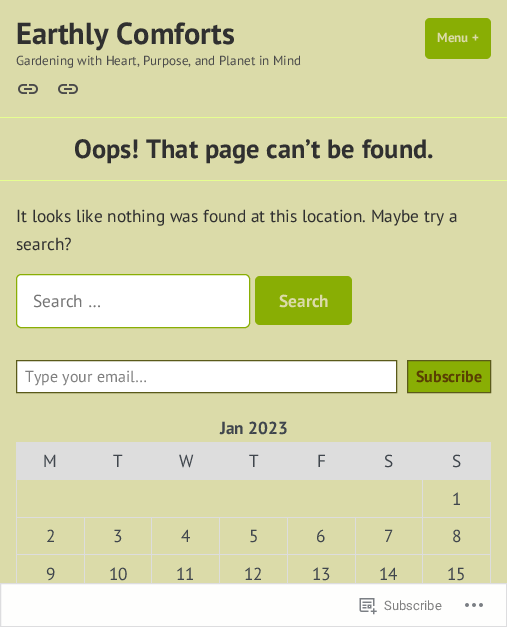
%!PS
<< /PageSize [507 627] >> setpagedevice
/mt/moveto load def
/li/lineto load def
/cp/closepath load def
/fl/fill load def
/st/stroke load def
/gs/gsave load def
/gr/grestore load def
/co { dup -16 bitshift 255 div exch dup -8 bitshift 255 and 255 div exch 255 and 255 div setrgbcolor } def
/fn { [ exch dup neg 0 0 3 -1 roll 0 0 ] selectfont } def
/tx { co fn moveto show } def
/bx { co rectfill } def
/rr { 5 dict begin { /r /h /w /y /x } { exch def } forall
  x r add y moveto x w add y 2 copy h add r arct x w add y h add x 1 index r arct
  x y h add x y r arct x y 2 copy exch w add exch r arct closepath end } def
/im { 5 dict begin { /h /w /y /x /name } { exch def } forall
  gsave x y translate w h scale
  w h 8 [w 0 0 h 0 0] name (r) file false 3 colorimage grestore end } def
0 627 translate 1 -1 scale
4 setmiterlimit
0 0 507 627 16#DBDBA9 bx
1 584 505 42 16#FEFEFD bx
16#89AE04 co
425 18 66 41 5 rr fl
(media/1.raw) 18 84 20 10 im
(media/1.raw) 58 84 20 10 im
0 117 507 1 16#E6FE91 bx
0 180 507 1 16#E6FE91 bx
16#FFFFFF co
16.5 274.5 233 53 4.5 rr gs fl gr
16#89AE04 co
st
255 276 97 49 5 rr fl
16#FFFFFF co
16.5 360.5 mt 396.5 360.5 li 396.5 392.5 li 16.5 392.5 li cp gs fl gr
16#5A5A1A co
st
16#89AE04 co
407.5 360.5 mt 490.5 360.5 li 490.5 392.5 li 407.5 392.5 li cp gs fl gr
16#5A5A1A co
st
17 443 67 36 16#DDDDDD bx
84 442 339 37 16#DDDDDD bx
16 442 69 1 16#DDDDDD bx
422 517 69 1 16#DDDDDD bx
422 554 69 1 16#DDDDDD bx
422 554 1 29 16#DDDDDD bx
355 554 68 1 16#DDDDDD bx
422 517 1 38 16#DDDDDD bx
355 517 68 1 16#DDDDDD bx
422 479 1 39 16#DDDDDD bx
16 479 407 1 16#DDDDDD bx
355 554 1 29 16#DDDDDD bx
287 554 69 1 16#DDDDDD bx
355 517 1 38 16#DDDDDD bx
287 517 69 1 16#DDDDDD bx
287 554 1 29 16#DDDDDD bx
219 554 69 1 16#DDDDDD bx
287 517 1 38 16#DDDDDD bx
219 517 69 1 16#DDDDDD bx
219 554 1 29 16#DDDDDD bx
151 554 69 1 16#DDDDDD bx
219 517 1 38 16#DDDDDD bx
151 517 69 1 16#DDDDDD bx
151 554 1 29 16#DDDDDD bx
84 554 68 1 16#DDDDDD bx
151 517 1 38 16#DDDDDD bx
84 517 68 1 16#DDDDDD bx
84 554 1 29 16#DDDDDD bx
16 554 69 1 16#DDDDDD bx
84 517 1 38 16#DDDDDD bx
16 517 69 1 16#DDDDDD bx
16 554 1 29 16#DDDDDD bx
16 517 1 38 16#DDDDDD bx
16 479 1 39 16#DDDDDD bx
16 442 1 38 16#DDDDDD bx
423 442 68 38 16#DDDDDD bx
490 554 1 29 16#DDDDDD bx
490 479 1 76 16#DDDDDD bx
16 583 1 1 16#FEFEFE bx
84 583 1 1 16#FEFEFE bx
151 583 1 1 16#FEFEFE bx
219 583 1 1 16#FEFEFE bx
287 583 1 1 16#FEFEFE bx
355 583 1 1 16#FEFEFE bx
490 583 1 1 16#FEFEFE bx
422 583 1 1 16#FEFEFE bx
16 626 1 1 16#FEFEFE bx
84 626 1 1 16#FEFEFE bx
151 626 1 1 16#FEFEFE bx
219 626 1 1 16#FEFEFE bx
287 626 1 1 16#FEFEFE bx
355 626 1 1 16#FEFEFE bx
490 626 1 1 16#FEFEFE bx
422 626 1 1 16#FEFEFE bx
16#DDDDDF co
.5 583.5 506 43 rectstroke
(media/2.raw) 359 598 18 17 im
(media/3.raw) 465 603 18 4 im
(Earthly Comforts) 16 44 /PTSans-Bold 30.5 16#303030 tx
(Menu +) 437 42 /PTSans-Bold 13.15 16#DBDBA9 tx
(Gardening with Heart, Purpose, and Planet in Mind) 16 65 /PTSans-Regular 13.15 16#4A4A4A tx
(Oops! That page can’t be found.) 74 158 /PTSans-Bold 26.5 16#303030 tx
(It looks like nothing was found at this location. Maybe try a) 16 222 /PTSans-Regular 17.4 16#303030 tx
(search?) 16 250 /PTSans-Regular 17.4 16#303030 tx
(Search …) 33 307 /PTSans-Regular 17.4 16#757575 tx
(Search) 279 307 /PTSans-Bold 17.4 16#DBDBA9 tx
(Type your email…) 25 382 /PTSans-Regular 16 16#808080 tx
(Subscribe) 416 382 /PTSans-Bold 16 16#593F02 tx
(Jan 2023) 220 434 /PTSans-Bold 17.4 16#40464D tx
(M) 43 467 /PTSans-Regular 17.4 16#40464D tx
(T) 113 467 /PTSans-Regular 17.4 16#40464D tx
(W) 179 467 /PTSans-Regular 17.4 16#40464D tx
(T) 249 467 /PTSans-Regular 17.4 16#40464D tx
(F) 317 467 /PTSans-Regular 17.4 16#40464D tx
(S) 384 467 /PTSans-Regular 17.4 16#40464D tx
(S) 452 467 /PTSans-Regular 17.4 16#40464D tx
(1) 452 505 /PTSans-Regular 17.4 16#40464D tx
(2) 46 542 /PTSans-Regular 17.4 16#40464D tx
(3) 113 542 /PTSans-Regular 17.4 16#40464D tx
(4) 181 542 /PTSans-Regular 17.4 16#40464D tx
(5) 249 542 /PTSans-Regular 17.4 16#40464D tx
(6) 316 542 /PTSans-Regular 17.4 16#40464D tx
(7) 384 542 /PTSans-Regular 17.4 16#40464D tx
(8) 452 542 /PTSans-Regular 17.4 16#40464D tx
(9) 46 580 /PTSans-Regular 17.4 16#40464D tx
(10) 109 580 /PTSans-Regular 17.4 16#40464D tx
(11) 176 580 /PTSans-Regular 17.4 16#40464D tx
(12) 244 580 /PTSans-Regular 17.4 16#40464D tx
(13) 312 580 /PTSans-Regular 17.4 16#40464D tx
(14) 379 580 /PTSans-Regular 17.4 16#40464D tx
(15) 447 580 /PTSans-Regular 17.4 16#40464D tx
(Subscribe) 384 610 /Roboto-Regular 13 16#808080 tx
showpage
